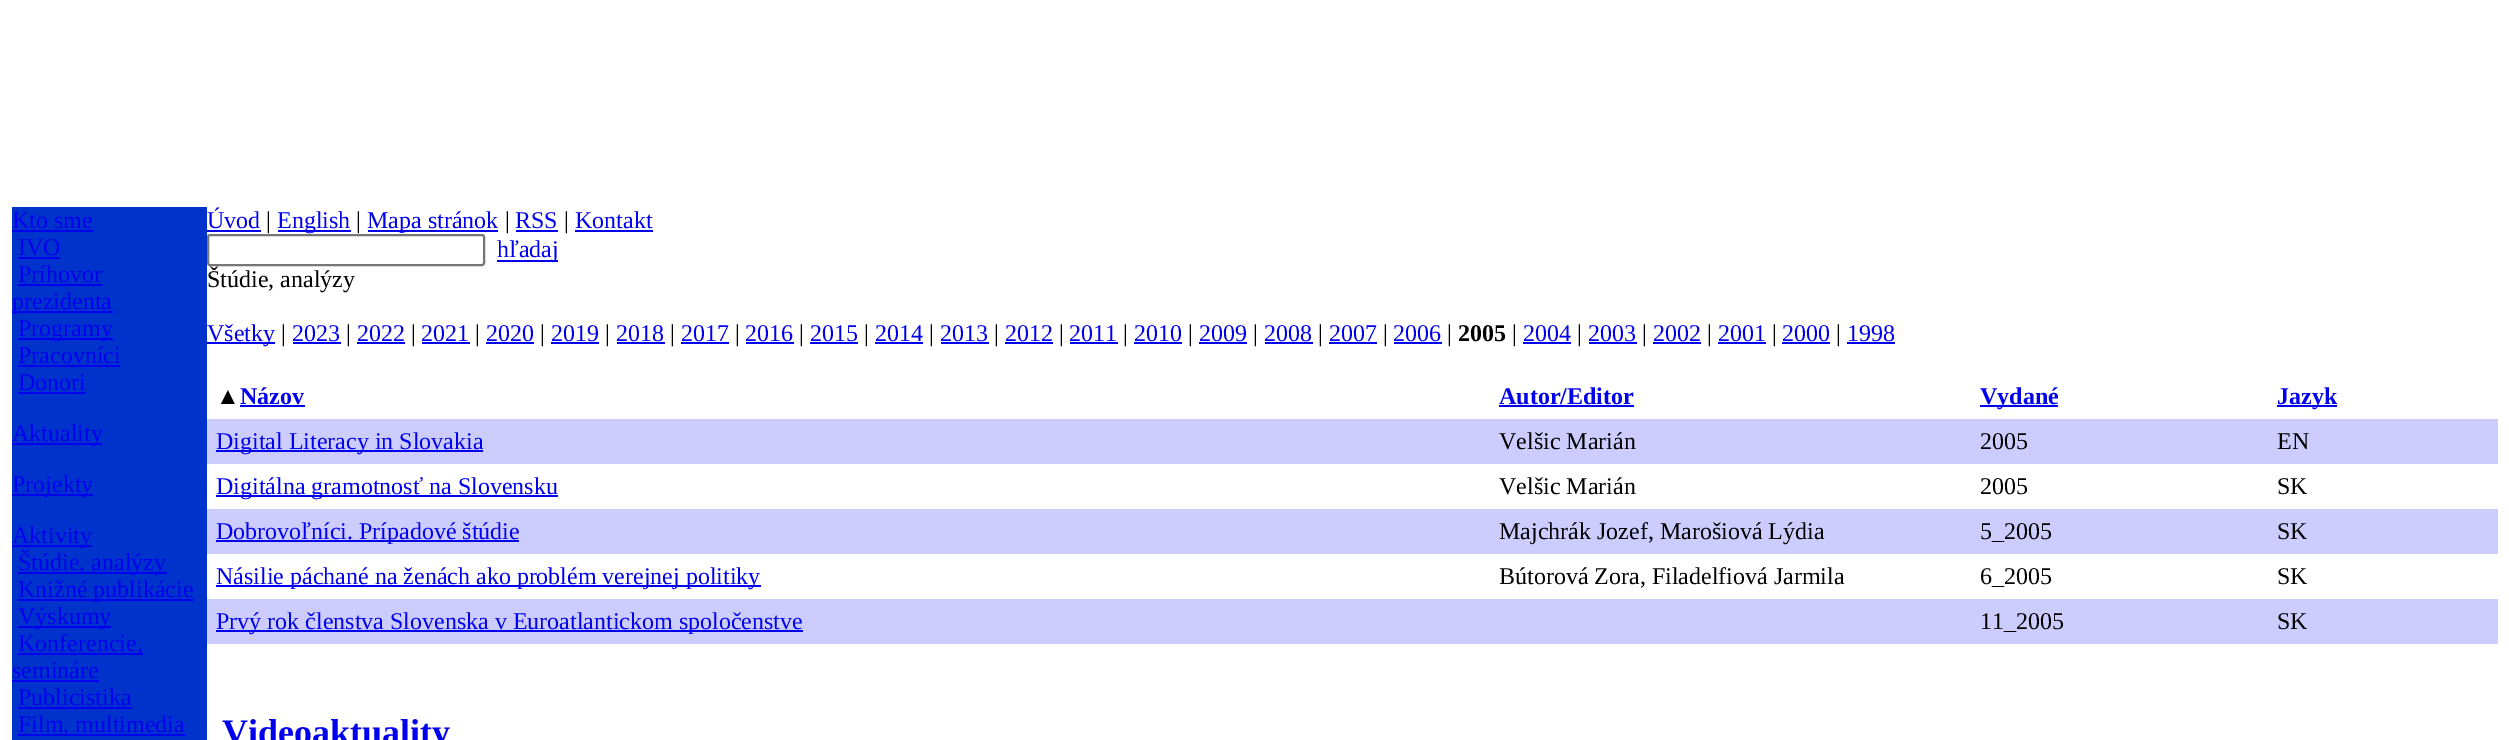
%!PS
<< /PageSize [2509 740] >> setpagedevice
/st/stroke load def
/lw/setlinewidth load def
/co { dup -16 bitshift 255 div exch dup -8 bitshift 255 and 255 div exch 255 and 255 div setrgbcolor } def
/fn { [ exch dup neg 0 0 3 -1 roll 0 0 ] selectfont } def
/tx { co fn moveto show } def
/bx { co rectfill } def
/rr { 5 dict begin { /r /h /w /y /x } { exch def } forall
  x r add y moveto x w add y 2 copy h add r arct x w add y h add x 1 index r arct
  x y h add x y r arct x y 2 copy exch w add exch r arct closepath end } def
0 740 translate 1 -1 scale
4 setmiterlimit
0 0 2509 740 16#FFFFFF bx
12 207 195 533 16#0033CC bx
12 230 81 2 16#0000EE bx
18 257 42 2 16#0000EE bx
18 284 84 2 16#0000EE bx
12 311 101 2 16#0000EE bx
18 338 95 2 16#0000EE bx
18 365 102 2 16#0000EE bx
18 392 68 2 16#0000EE bx
12 443 90 2 16#0000EE bx
12 494 81 2 16#0000EE bx
12 545 80 2 16#0000EE bx
18 572 149 2 16#0000EE bx
18 599 176 2 16#0000EE bx
18 626 93 2 16#0000EE bx
18 653 125 2 16#0000EE bx
12 680 87 2 16#0000EE bx
18 707 114 2 16#0000EE bx
18 734 167 2 16#0000EE bx
207 230 54 2 16#0000EE bx
278 230 73 2 16#0000EE bx
368 230 130 2 16#0000EE bx
516 230 42 2 16#0000EE bx
575 230 78 2 16#0000EE bx
16#767676 co
2 lw
208 235 276 30 2 rr st
497 260 61 2 16#0000EE bx
207 342 68 2 16#0000EE bx
293 342 48 2 16#0000EE bx
357 342 48 2 16#0000EE bx
422 342 48 2 16#0000EE bx
486 342 48 2 16#0000EE bx
551 342 48 2 16#0000EE bx
617 342 48 2 16#0000EE bx
681 342 48 2 16#0000EE bx
746 342 48 2 16#0000EE bx
810 342 48 2 16#0000EE bx
875 342 48 2 16#0000EE bx
941 342 48 2 16#0000EE bx
1005 342 48 2 16#0000EE bx
1070 342 48 2 16#0000EE bx
1134 342 48 2 16#0000EE bx
1199 342 48 2 16#0000EE bx
1265 342 48 2 16#0000EE bx
1329 342 48 2 16#0000EE bx
1394 342 48 2 16#0000EE bx
1523 342 48 2 16#0000EE bx
1589 342 48 2 16#0000EE bx
1653 342 48 2 16#0000EE bx
1718 342 48 2 16#0000EE bx
1782 342 48 2 16#0000EE bx
1847 342 48 2 16#0000EE bx
240 405 65 2 16#0000EE bx
1499 405 135 2 16#0000EE bx
1980 405 78 2 16#0000EE bx
2277 405 60 2 16#0000EE bx
207 419 2291 45 16#CCCCFF bx
216 450 267 2 16#0000EE bx
216 495 342 2 16#0000EE bx
207 509 2291 45 16#CCCCFF bx
216 540 303 2 16#0000EE bx
216 585 545 2 16#0000EE bx
207 599 2291 45 16#CCCCFF bx
216 630 587 2 16#0000EE bx
(Kto sme) 12 228 /LiberationSerif-Regular 24 16#0000EE tx
(IVO) 18 255 /LiberationSerif-Regular 24 16#0000EE tx
(Príhovor) 18 282 /LiberationSerif-Regular 24 16#0000EE tx
(prezidenta) 12 309 /LiberationSerif-Regular 24 16#0000EE tx
(Programy) 18 336 /LiberationSerif-Regular 24 16#0000EE tx
(Pracovníci) 18 363 /LiberationSerif-Regular 24 16#0000EE tx
(Donori) 18 390 /LiberationSerif-Regular 24 16#0000EE tx
(Aktuality) 12 441 /LiberationSerif-Regular 24 16#0000EE tx
(Projekty) 12 492 /LiberationSerif-Regular 24 16#0000EE tx
(Aktivity) 12 543 /LiberationSerif-Regular 24 16#0000EE tx
(Štúdie, analýzy) 18 570 /LiberationSerif-Regular 24 16#0000EE tx
(Knižné publikácie) 18 597 /LiberationSerif-Regular 24 16#0000EE tx
(Výskumy) 18 624 /LiberationSerif-Regular 24 16#0000EE tx
(Konferencie,) 18 651 /LiberationSerif-Regular 24 16#0000EE tx
(semináre) 12 678 /LiberationSerif-Regular 24 16#0000EE tx
(Publicistika) 18 705 /LiberationSerif-Regular 24 16#0000EE tx
(Film, multimedia) 18 732 /LiberationSerif-Regular 24 16#0000EE tx
(Úvod) 207 228 /LiberationSerif-Regular 24 16#0000EE tx
(|) 266 228 /LiberationSerif-Regular 24 16#000000 tx
(English) 277 228 /LiberationSerif-Regular 24 16#0000EE tx
(|) 356 228 /LiberationSerif-Regular 24 16#000000 tx
(Mapa stránok) 367 228 /LiberationSerif-Regular 24 16#0000EE tx
(|) 505 228 /LiberationSerif-Regular 24 16#000000 tx
(RSS) 515 228 /LiberationSerif-Regular 24 16#0000EE tx
(|) 564 228 /LiberationSerif-Regular 24 16#000000 tx
(Kontakt) 575 228 /LiberationSerif-Regular 24 16#0000EE tx
(hľadaj) 497 257 /LiberationSerif-Regular 24 16#0000EE tx
(Štúdie, analýzy) 207 287 /LiberationSerif-Regular 24 16#000000 tx
(Všetky) 207 341 /LiberationSerif-Regular 24 16#0000EE tx
(|) 281 341 /LiberationSerif-Regular 24 16#000000 tx
(2023) 292 341 /LiberationSerif-Regular 24 16#0000EE tx
(|) 346 341 /LiberationSerif-Regular 24 16#000000 tx
(2022) 357 341 /LiberationSerif-Regular 24 16#0000EE tx
(|) 411 341 /LiberationSerif-Regular 24 16#000000 tx
(2021) 421 341 /LiberationSerif-Regular 24 16#0000EE tx
(|) 475 341 /LiberationSerif-Regular 24 16#000000 tx
(2020) 486 341 /LiberationSerif-Regular 24 16#0000EE tx
(|) 540 341 /LiberationSerif-Regular 24 16#000000 tx
(2019) 551 341 /LiberationSerif-Regular 24 16#0000EE tx
(|) 605 341 /LiberationSerif-Regular 24 16#000000 tx
(2018) 616 341 /LiberationSerif-Regular 24 16#0000EE tx
(|) 670 341 /LiberationSerif-Regular 24 16#000000 tx
(2017) 681 341 /LiberationSerif-Regular 24 16#0000EE tx
(|) 735 341 /LiberationSerif-Regular 24 16#000000 tx
(2016) 745 341 /LiberationSerif-Regular 24 16#0000EE tx
(|) 799 341 /LiberationSerif-Regular 24 16#000000 tx
(2015) 810 341 /LiberationSerif-Regular 24 16#0000EE tx
(|) 864 341 /LiberationSerif-Regular 24 16#000000 tx
(2014) 875 341 /LiberationSerif-Regular 24 16#0000EE tx
(|) 929 341 /LiberationSerif-Regular 24 16#000000 tx
(2013) 940 341 /LiberationSerif-Regular 24 16#0000EE tx
(|) 994 341 /LiberationSerif-Regular 24 16#000000 tx
(2012) 1005 341 /LiberationSerif-Regular 24 16#0000EE tx
(|) 1059 341 /LiberationSerif-Regular 24 16#000000 tx
(2011) 1069 341 /LiberationSerif-Regular 24 16#0000EE tx
(|) 1123 341 /LiberationSerif-Regular 24 16#000000 tx
(2010) 1134 341 /LiberationSerif-Regular 24 16#0000EE tx
(|) 1188 341 /LiberationSerif-Regular 24 16#000000 tx
(2009) 1199 341 /LiberationSerif-Regular 24 16#0000EE tx
(|) 1253 341 /LiberationSerif-Regular 24 16#000000 tx
(2008) 1264 341 /LiberationSerif-Regular 24 16#0000EE tx
(|) 1318 341 /LiberationSerif-Regular 24 16#000000 tx
(2007) 1329 341 /LiberationSerif-Regular 24 16#0000EE tx
(|) 1383 341 /LiberationSerif-Regular 24 16#000000 tx
(2006) 1393 341 /LiberationSerif-Regular 24 16#0000EE tx
(|) 1447 341 /LiberationSerif-Regular 24 16#000000 tx
(2005) 1458 341 /LiberationSerif-Bold 24 16#000000 tx
(|) 1512 341 /LiberationSerif-Regular 24 16#000000 tx
(2004) 1523 341 /LiberationSerif-Regular 24 16#0000EE tx
(|) 1577 341 /LiberationSerif-Regular 24 16#000000 tx
(2003) 1588 341 /LiberationSerif-Regular 24 16#0000EE tx
(|) 1642 341 /LiberationSerif-Regular 24 16#000000 tx
(2002) 1653 341 /LiberationSerif-Regular 24 16#0000EE tx
(|) 1707 341 /LiberationSerif-Regular 24 16#000000 tx
(2001) 1718 341 /LiberationSerif-Regular 24 16#0000EE tx
(|) 1772 341 /LiberationSerif-Regular 24 16#000000 tx
(2000) 1782 341 /LiberationSerif-Regular 24 16#0000EE tx
(|) 1836 341 /LiberationSerif-Regular 24 16#000000 tx
(1998) 1847 341 /LiberationSerif-Regular 24 16#0000EE tx
(▲) 216 404 /LiberationSerif-Regular 24 16#000000 tx
(Názov) 240 404 /LiberationSerif-Bold 24 16#0000EE tx
(Autor/Editor) 1499 404 /LiberationSerif-Bold 24 16#0000EE tx
(Vydané) 1980 404 /LiberationSerif-Bold 24 16#0000EE tx
(Jazyk) 2277 404 /LiberationSerif-Bold 24 16#0000EE tx
(Digital Literacy in Slovakia) 216 449 /LiberationSerif-Regular 24 16#0000EE tx
(Velšic Marián) 1499 449 /LiberationSerif-Regular 24 16#000000 tx
(2005) 1980 449 /LiberationSerif-Regular 24 16#000000 tx
(EN) 2277 449 /LiberationSerif-Regular 24 16#000000 tx
(Digitálna gramotnosť na Slovensku) 216 494 /LiberationSerif-Regular 24 16#0000EE tx
(Velšic Marián) 1499 494 /LiberationSerif-Regular 24 16#000000 tx
(2005) 1980 494 /LiberationSerif-Regular 24 16#000000 tx
(SK) 2277 494 /LiberationSerif-Regular 24 16#000000 tx
(Dobrovoľníci. Prípadové štúdie) 216 539 /LiberationSerif-Regular 24 16#0000EE tx
(Majchrák Jozef, Marošiová Lýdia) 1499 539 /LiberationSerif-Regular 24 16#000000 tx
(5_2005) 1980 539 /LiberationSerif-Regular 24 16#000000 tx
(SK) 2277 539 /LiberationSerif-Regular 24 16#000000 tx
(Násilie páchané na ženách ako problém verejnej politiky) 216 584 /LiberationSerif-Regular 24 16#0000EE tx
(Bútorová Zora, Filadelfiová Jarmila) 1499 584 /LiberationSerif-Regular 24 16#000000 tx
(6_2005) 1980 584 /LiberationSerif-Regular 24 16#000000 tx
(SK) 2277 584 /LiberationSerif-Regular 24 16#000000 tx
(Prvý rok členstva Slovenska v Euroatlantickom spoločenstve) 216 629 /LiberationSerif-Regular 24 16#0000EE tx
(11_2005) 1980 629 /LiberationSerif-Regular 24 16#000000 tx
(SK) 2277 629 /LiberationSerif-Regular 24 16#000000 tx
(Videoaktuality) 222 744 /LiberationSerif-Bold 36 16#0000EE tx
showpage
